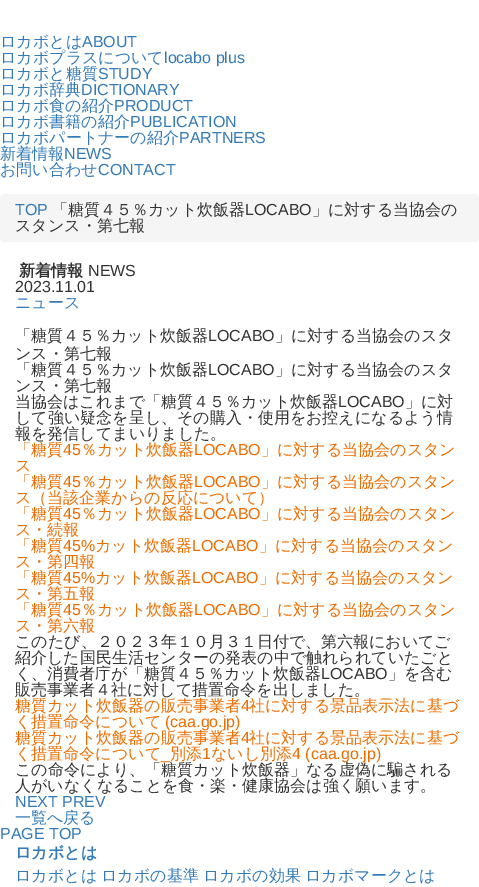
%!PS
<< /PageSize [479 887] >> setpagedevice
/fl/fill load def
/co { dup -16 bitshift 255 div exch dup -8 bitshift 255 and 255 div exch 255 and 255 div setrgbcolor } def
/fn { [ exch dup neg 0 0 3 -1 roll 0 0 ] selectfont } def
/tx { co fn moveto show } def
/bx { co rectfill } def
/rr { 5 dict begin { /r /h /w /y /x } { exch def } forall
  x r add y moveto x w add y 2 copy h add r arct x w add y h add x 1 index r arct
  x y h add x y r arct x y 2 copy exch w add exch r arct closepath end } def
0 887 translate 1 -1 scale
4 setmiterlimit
0 0 479 887 16#FFFFFF bx
16#F5F5F5 co
0 194 479 48 4 rr fl
(ロカボとは) 0 47 /WenQuanYiZenHei-Medium 16 16#337AB7 tx
(ABOUT) 82 47 /LiberationSans-Regular 16 16#337AB7 tx
(ロカボプラスについて) 0 63 /WenQuanYiZenHei-Medium 16 16#337AB7 tx
(locabo plus) 164 63 /LiberationSans-Regular 16 16#337AB7 tx
(ロカボと糖質) 0 79 /WenQuanYiZenHei-Medium 16 16#337AB7 tx
(STUDY) 98 79 /LiberationSans-Regular 16 16#337AB7 tx
(ロカボ辞典) 0 95 /WenQuanYiZenHei-Medium 16 16#337AB7 tx
(DICTIONARY) 81 95 /LiberationSans-Regular 16 16#337AB7 tx
(ロカボ食の紹介) 0 111 /WenQuanYiZenHei-Medium 16 16#337AB7 tx
(PRODUCT) 114 111 /LiberationSans-Regular 16 16#337AB7 tx
(ロカボ書籍の紹介) 0 127 /WenQuanYiZenHei-Medium 16 16#337AB7 tx
(PUBLICATION) 130 127 /LiberationSans-Regular 16 16#337AB7 tx
(ロカボパートナーの紹介) 0 143 /WenQuanYiZenHei-Medium 16 16#337AB7 tx
(PARTNERS) 179 143 /LiberationSans-Regular 16 16#337AB7 tx
(新着情報) 0 159 /WenQuanYiZenHei-Medium 16 16#337AB7 tx
(NEWS) 64 159 /LiberationSans-Regular 16 16#337AB7 tx
(お問い合わせ) 0 175 /WenQuanYiZenHei-Medium 16 16#337AB7 tx
(CONTACT) 98 175 /LiberationSans-Regular 16 16#337AB7 tx
(TOP) 15 215 /LiberationSans-Regular 16 16#337AB7 tx
(「糖質４５％カット炊飯器) 52 215 /WenQuanYiZenHei-Medium 16 16#333333 tx
(LOCABO) 245 215 /LiberationSans-Regular 16 16#333333 tx
(」に対する当協会の) 312 215 /WenQuanYiZenHei-Medium 16 16#333333 tx
(スタンス・第七報) 15 231 /WenQuanYiZenHei-Medium 16 16#333333 tx
(新着情報) 19 276 /WenQuanYiZenHei-Bold 16 16#333333 tx
(NEWS) 88 276 /LiberationSans-Regular 16 16#333333 tx
(2023.11.01) 15 292 /LiberationSans-Regular 16 16#333333 tx
(ニュース) 15 308 /WenQuanYiZenHei-Medium 16 16#337AB7 tx
(「糖質４５％カット炊飯器) 15 341 /WenQuanYiZenHei-Medium 16 16#333333 tx
(LOCABO) 208 341 /LiberationSans-Regular 16 16#333333 tx
(」に対する当協会のスタ) 275 341 /WenQuanYiZenHei-Medium 16 16#333333 tx
(ンス・第七報) 15 359 /WenQuanYiZenHei-Medium 16 16#333333 tx
(「糖質４５％カット炊飯器) 15 375 /WenQuanYiZenHei-Medium 16 16#333333 tx
(LOCABO) 208 375 /LiberationSans-Regular 16 16#333333 tx
(」に対する当協会のスタ) 275 375 /WenQuanYiZenHei-Medium 16 16#333333 tx
(ンス・第七報) 15 391 /WenQuanYiZenHei-Medium 16 16#333333 tx
(当協会はこれまで「糖質４５％カット炊飯器) 15 407 /WenQuanYiZenHei-Medium 16 16#333333 tx
(LOCABO) 338 407 /LiberationSans-Regular 16 16#333333 tx
(」に対) 405 407 /WenQuanYiZenHei-Medium 16 16#333333 tx
(して強い疑念を呈し、その購入・使用をお控えになるよう情) 15 423 /WenQuanYiZenHei-Medium 16 16#333333 tx
(報を発信してまいりました。) 15 439 /WenQuanYiZenHei-Medium 16 16#333333 tx
(「糖質) 15 455 /WenQuanYiZenHei-Medium 16 16#ED6D00 tx
(45) 63 455 /LiberationSans-Regular 16 16#ED6D00 tx
(％カット炊飯器) 81 455 /WenQuanYiZenHei-Medium 16 16#ED6D00 tx
(LOCABO) 194 455 /LiberationSans-Regular 16 16#ED6D00 tx
(」に対する当協会のスタン) 261 455 /WenQuanYiZenHei-Medium 16 16#ED6D00 tx
(ス) 15 471 /WenQuanYiZenHei-Medium 16 16#ED6D00 tx
(「糖質) 15 487 /WenQuanYiZenHei-Medium 16 16#ED6D00 tx
(45) 63 487 /LiberationSans-Regular 16 16#ED6D00 tx
(％カット炊飯器) 81 487 /WenQuanYiZenHei-Medium 16 16#ED6D00 tx
(LOCABO) 194 487 /LiberationSans-Regular 16 16#ED6D00 tx
(」に対する当協会のスタン) 261 487 /WenQuanYiZenHei-Medium 16 16#ED6D00 tx
(ス（当該企業からの反応について）) 15 503 /WenQuanYiZenHei-Medium 16 16#ED6D00 tx
(「糖質) 15 519 /WenQuanYiZenHei-Medium 16 16#ED6D00 tx
(45) 63 519 /LiberationSans-Regular 16 16#ED6D00 tx
(％カット炊飯器) 81 519 /WenQuanYiZenHei-Medium 16 16#ED6D00 tx
(LOCABO) 194 519 /LiberationSans-Regular 16 16#ED6D00 tx
(」に対する当協会のスタン) 261 519 /WenQuanYiZenHei-Medium 16 16#ED6D00 tx
(ス・続報) 15 535 /WenQuanYiZenHei-Medium 16 16#ED6D00 tx
(「糖質) 15 551 /WenQuanYiZenHei-Medium 16 16#ED6D00 tx
(45%) 63 551 /LiberationSans-Regular 16 16#ED6D00 tx
(カット炊飯器) 95 551 /WenQuanYiZenHei-Medium 16 16#ED6D00 tx
(LOCABO) 192 551 /LiberationSans-Regular 16 16#ED6D00 tx
(」に対する当協会のスタン) 259 551 /WenQuanYiZenHei-Medium 16 16#ED6D00 tx
(ス・第四報) 15 567 /WenQuanYiZenHei-Medium 16 16#ED6D00 tx
(「糖質) 15 583 /WenQuanYiZenHei-Medium 16 16#ED6D00 tx
(45%) 63 583 /LiberationSans-Regular 16 16#ED6D00 tx
(カット炊飯器) 95 583 /WenQuanYiZenHei-Medium 16 16#ED6D00 tx
(LOCABO) 192 583 /LiberationSans-Regular 16 16#ED6D00 tx
(」に対する当協会のスタン) 259 583 /WenQuanYiZenHei-Medium 16 16#ED6D00 tx
(ス・第五報) 15 599 /WenQuanYiZenHei-Medium 16 16#ED6D00 tx
(「糖質) 15 615 /WenQuanYiZenHei-Medium 16 16#ED6D00 tx
(45) 63 615 /LiberationSans-Regular 16 16#ED6D00 tx
(％カット炊飯器) 81 615 /WenQuanYiZenHei-Medium 16 16#ED6D00 tx
(LOCABO) 194 615 /LiberationSans-Regular 16 16#ED6D00 tx
(」に対する当協会のスタン) 261 615 /WenQuanYiZenHei-Medium 16 16#ED6D00 tx
(ス・第六報) 15 631 /WenQuanYiZenHei-Medium 16 16#ED6D00 tx
(このたび、２０２３年１０月３１日付で、第六報においてご) 15 647 /WenQuanYiZenHei-Medium 16 16#333333 tx
(紹介した国民生活センターの発表の中で触れられていたごと) 15 663 /WenQuanYiZenHei-Medium 16 16#333333 tx
(く、消費者庁が「糖質４５％カット炊飯器) 15 679 /WenQuanYiZenHei-Medium 16 16#333333 tx
(LOCABO) 321 679 /LiberationSans-Regular 16 16#333333 tx
(」を含む) 388 679 /WenQuanYiZenHei-Medium 16 16#333333 tx
(販売事業者４社に対して措置命令を出しました。) 15 695 /WenQuanYiZenHei-Medium 16 16#333333 tx
(糖質カット炊飯器の販売事業者) 15 711 /WenQuanYiZenHei-Medium 16 16#ED6D00 tx
(4) 241 711 /LiberationSans-Regular 16 16#ED6D00 tx
(社に対する景品表示法に基づ) 249 711 /WenQuanYiZenHei-Medium 16 16#ED6D00 tx
(く措置命令について) 15 727 /WenQuanYiZenHei-Medium 16 16#ED6D00 tx
(\(caa.go.jp\)) 165 727 /LiberationSans-Regular 16 16#ED6D00 tx
(糖質カット炊飯器の販売事業者) 15 743 /WenQuanYiZenHei-Medium 16 16#ED6D00 tx
(4) 241 743 /LiberationSans-Regular 16 16#ED6D00 tx
(社に対する景品表示法に基づ) 249 743 /WenQuanYiZenHei-Medium 16 16#ED6D00 tx
(く措置命令について) 15 759 /WenQuanYiZenHei-Medium 16 16#ED6D00 tx
(別添) 170 759 /WenQuanYiZenHei-Medium 16 16#ED6D00 tx
(1) 202 759 /LiberationSans-Regular 16 16#ED6D00 tx
(ないし別添) 211 759 /WenQuanYiZenHei-Medium 16 16#ED6D00 tx
(4 \(caa.go.jp\)) 292 759 /LiberationSans-Regular 16 16#ED6D00 tx
(_) 161 759 /LiberationSans-Regular 16 16#ED6D00 tx
(この命令により、「糖質カット炊飯器」なる虚偽に騙される) 15 775 /WenQuanYiZenHei-Medium 16 16#333333 tx
(人がいなくなることを食・楽・健康協会は強く願います。) 15 791 /WenQuanYiZenHei-Medium 16 16#333333 tx
(NEXT PREV) 15 807 /LiberationSans-Regular 16 16#337AB7 tx
(一覧へ戻る) 15 823 /WenQuanYiZenHei-Medium 16 16#337AB7 tx
(PAGE TOP) 0 839 /LiberationSans-Regular 16 16#337AB7 tx
(ロカボとは) 15 858 /WenQuanYiZenHei-Bold 16 16#337AB7 tx
(ロカボとは) 15 881 /WenQuanYiZenHei-Medium 16 16#337AB7 tx
(ロカボの基準) 101 881 /WenQuanYiZenHei-Medium 16 16#337AB7 tx
(ロカボの効果) 203 881 /WenQuanYiZenHei-Medium 16 16#337AB7 tx
(ロカボマークとは) 305 881 /WenQuanYiZenHei-Medium 16 16#337AB7 tx
showpage
